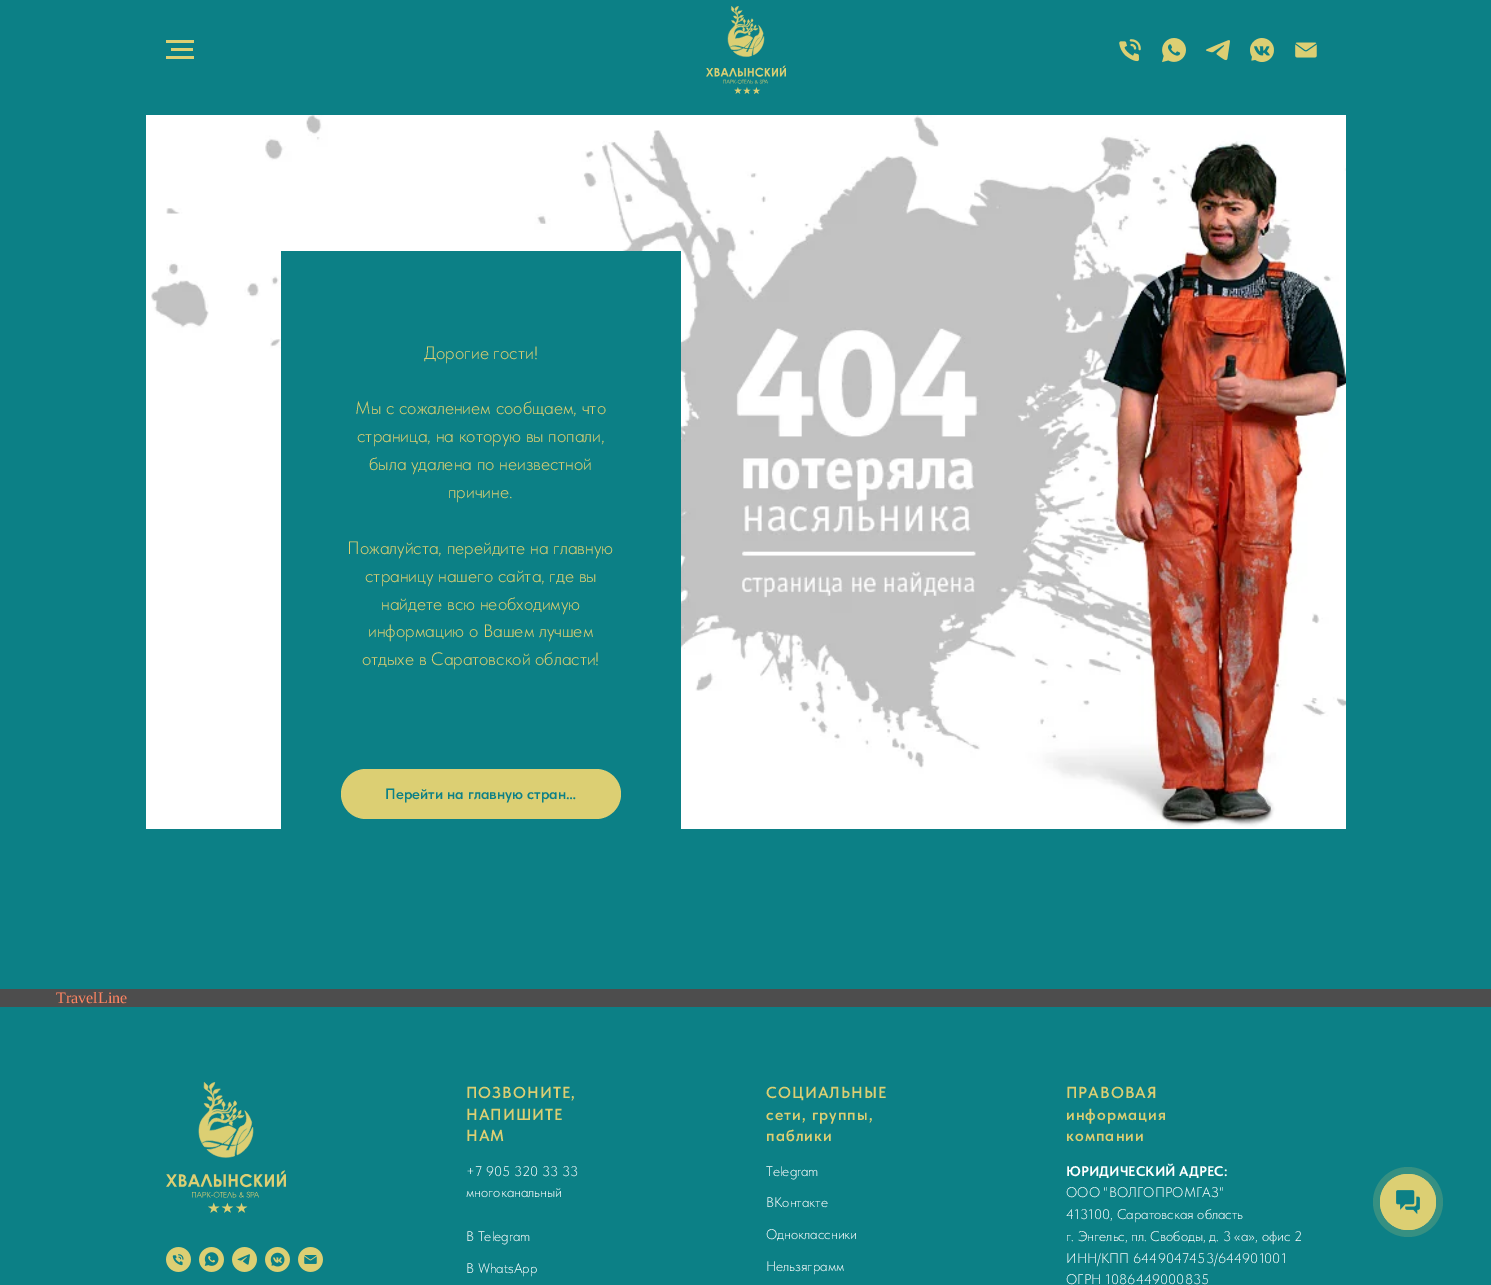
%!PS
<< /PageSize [1491 1285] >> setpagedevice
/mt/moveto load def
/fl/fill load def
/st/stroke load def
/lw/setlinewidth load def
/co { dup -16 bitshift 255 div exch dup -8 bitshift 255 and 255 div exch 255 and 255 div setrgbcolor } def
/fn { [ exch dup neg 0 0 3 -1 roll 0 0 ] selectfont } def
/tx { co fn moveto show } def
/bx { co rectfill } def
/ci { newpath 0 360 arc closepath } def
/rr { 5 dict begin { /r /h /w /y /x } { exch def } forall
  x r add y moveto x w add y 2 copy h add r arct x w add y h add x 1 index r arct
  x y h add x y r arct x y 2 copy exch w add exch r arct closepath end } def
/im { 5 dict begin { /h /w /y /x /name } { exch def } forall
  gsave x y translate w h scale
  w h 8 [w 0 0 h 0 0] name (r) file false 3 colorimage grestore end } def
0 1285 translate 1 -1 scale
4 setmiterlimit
0 0 1491 1285 16#0C8086 bx
166 40 28 3 16#DCCF73 bx
171 48 22 3 16#DCCF73 bx
166 56 28 3 16#DCCF73 bx
(media/1.raw) 706 6 80 88 im
(media/2.raw) 1119 39 22 23 im
(media/3.raw) 1162 38 24 25 im
(media/4.raw) 1206 40 24 21 im
(media/5.raw) 1250 38 24 24 im
(media/6.raw) 1295 42 22 16 im
(media/7.raw) 146 115 1200 714 im
281 251 400 578 16#0C8086 bx
16#DCCF73 co
341 769 280 50 25 rr fl
0 989 1491 18 16#4D4D4D bx
(media/8.raw) 166 1082 120 131 im
(media/9.raw) 166 1247 25 25 im
(media/10.raw) 199 1247 25 25 im
(media/11.raw) 232 1247 25 25 im
(media/12.raw) 265 1247 25 25 im
(media/13.raw) 298 1247 25 25 im
16#369082 co
1408 1202 35 ci fl
16#DCCF73 co
.8 lw
1408 1202 27.6 ci st
1408 1202 28 ci fl
(media/14.raw) 1396 1190 24 24 im
(Дорогие гости!) 424 359 /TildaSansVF-Light 18 16#DCCF73 tx
(Мы с сожалением сообщаем, что) 355 414 /TildaSansVF-Light 18 16#DCCF73 tx
(страница, на которую вы попали,) 357 442 /TildaSansVF-Light 18 16#DCCF73 tx
(была удалена по неизвестной) 369 470 /TildaSansVF-Light 18 16#DCCF73 tx
(причине.) 448 498 /TildaSansVF-Light 18 16#DCCF73 tx
(Пожалуйста, перейдите на главную) 347 554 /TildaSansVF-Light 18 16#DCCF73 tx
(страницу нашего сайта, где вы) 365 582 /TildaSansVF-Light 18 16#DCCF73 tx
(найдете всю необходимую) 381 610 /TildaSansVF-Light 18 16#DCCF73 tx
(информацию о Вашем лучшем) 368 637 /TildaSansVF-Light 18 16#DCCF73 tx
(отдыхе в Саратовской области!) 362 665 /TildaSansVF-Light 18 16#DCCF73 tx
(Перейти на главную стран…) 385 799 /TildaSansVF-SemiBold 15 16#0C8086 tx
(TravelLine) 56 1003 /LiberationSerif-Regular 16 16#FF8562 tx
/TildaSansVF-SemiBold 16 fn
16#DCCF73 co
466 1098 mt 1 0 (ПОЗВОНИТЕ,) ashow
466 1120 mt 1 0 (НАПИШИТЕ) ashow
466 1141 mt 1 0 (НАМ) ashow
(+7 905 320 33 33) 466 1176 /TildaSansVF-Light 14 16#FFFFFF tx
(многоканальный) 466 1197 /TildaSansVF-Light 14 16#FFFFFF tx
(В Telegram) 466 1241 /TildaSansVF-Light 14 16#FFFFFF tx
(В WhatsApp) 466 1273 /TildaSansVF-Light 14 16#FFFFFF tx
/TildaSansVF-SemiBold 16 fn
16#DCCF73 co
766 1098 mt 1 0 (СОЦИАЛЬНЫЕ) ashow
766 1120 mt 1 0 (сети, группы,) ashow
766 1141 mt 1 0 (паблики) ashow
(Telegram) 766 1176 /TildaSansVF-Light 14 16#FFFFFF tx
(ВКонтакте) 766 1207 /TildaSansVF-Light 14 16#FFFFFF tx
(Одноклассники) 766 1239 /TildaSansVF-Light 14 16#FFFFFF tx
(Нельзяграмм) 766 1271 /TildaSansVF-Light 14 16#FFFFFF tx
/TildaSansVF-SemiBold 16 fn
16#DCCF73 co
1066 1098 mt 1 0 (ПРАВОВАЯ) ashow
1066 1120 mt 1 0 (информация) ashow
1066 1141 mt 1 0 (компании) ashow
(ЮРИДИЧЕСКИЙ АДРЕС:) 1066 1176 /TildaSansVF-Bold 14 16#FFFFFF tx
(ООО "ВОЛГОПРОМГАЗ") 1066 1197 /TildaSansVF-Light 14 16#FFFFFF tx
(413100, Саратовская область) 1066 1219 /TildaSansVF-Light 14 16#FFFFFF tx
(г. Энгельс, пл. Свободы, д. 3 «а», офис 2) 1066 1241 /TildaSansVF-Light 14 16#FFFFFF tx
(ИНН/КПП 6449047453/644901001) 1066 1263 /TildaSansVF-Light 14 16#FFFFFF tx
(ОГРН 1086449000835) 1066 1284 /TildaSansVF-Light 14 16#FFFFFF tx
showpage
